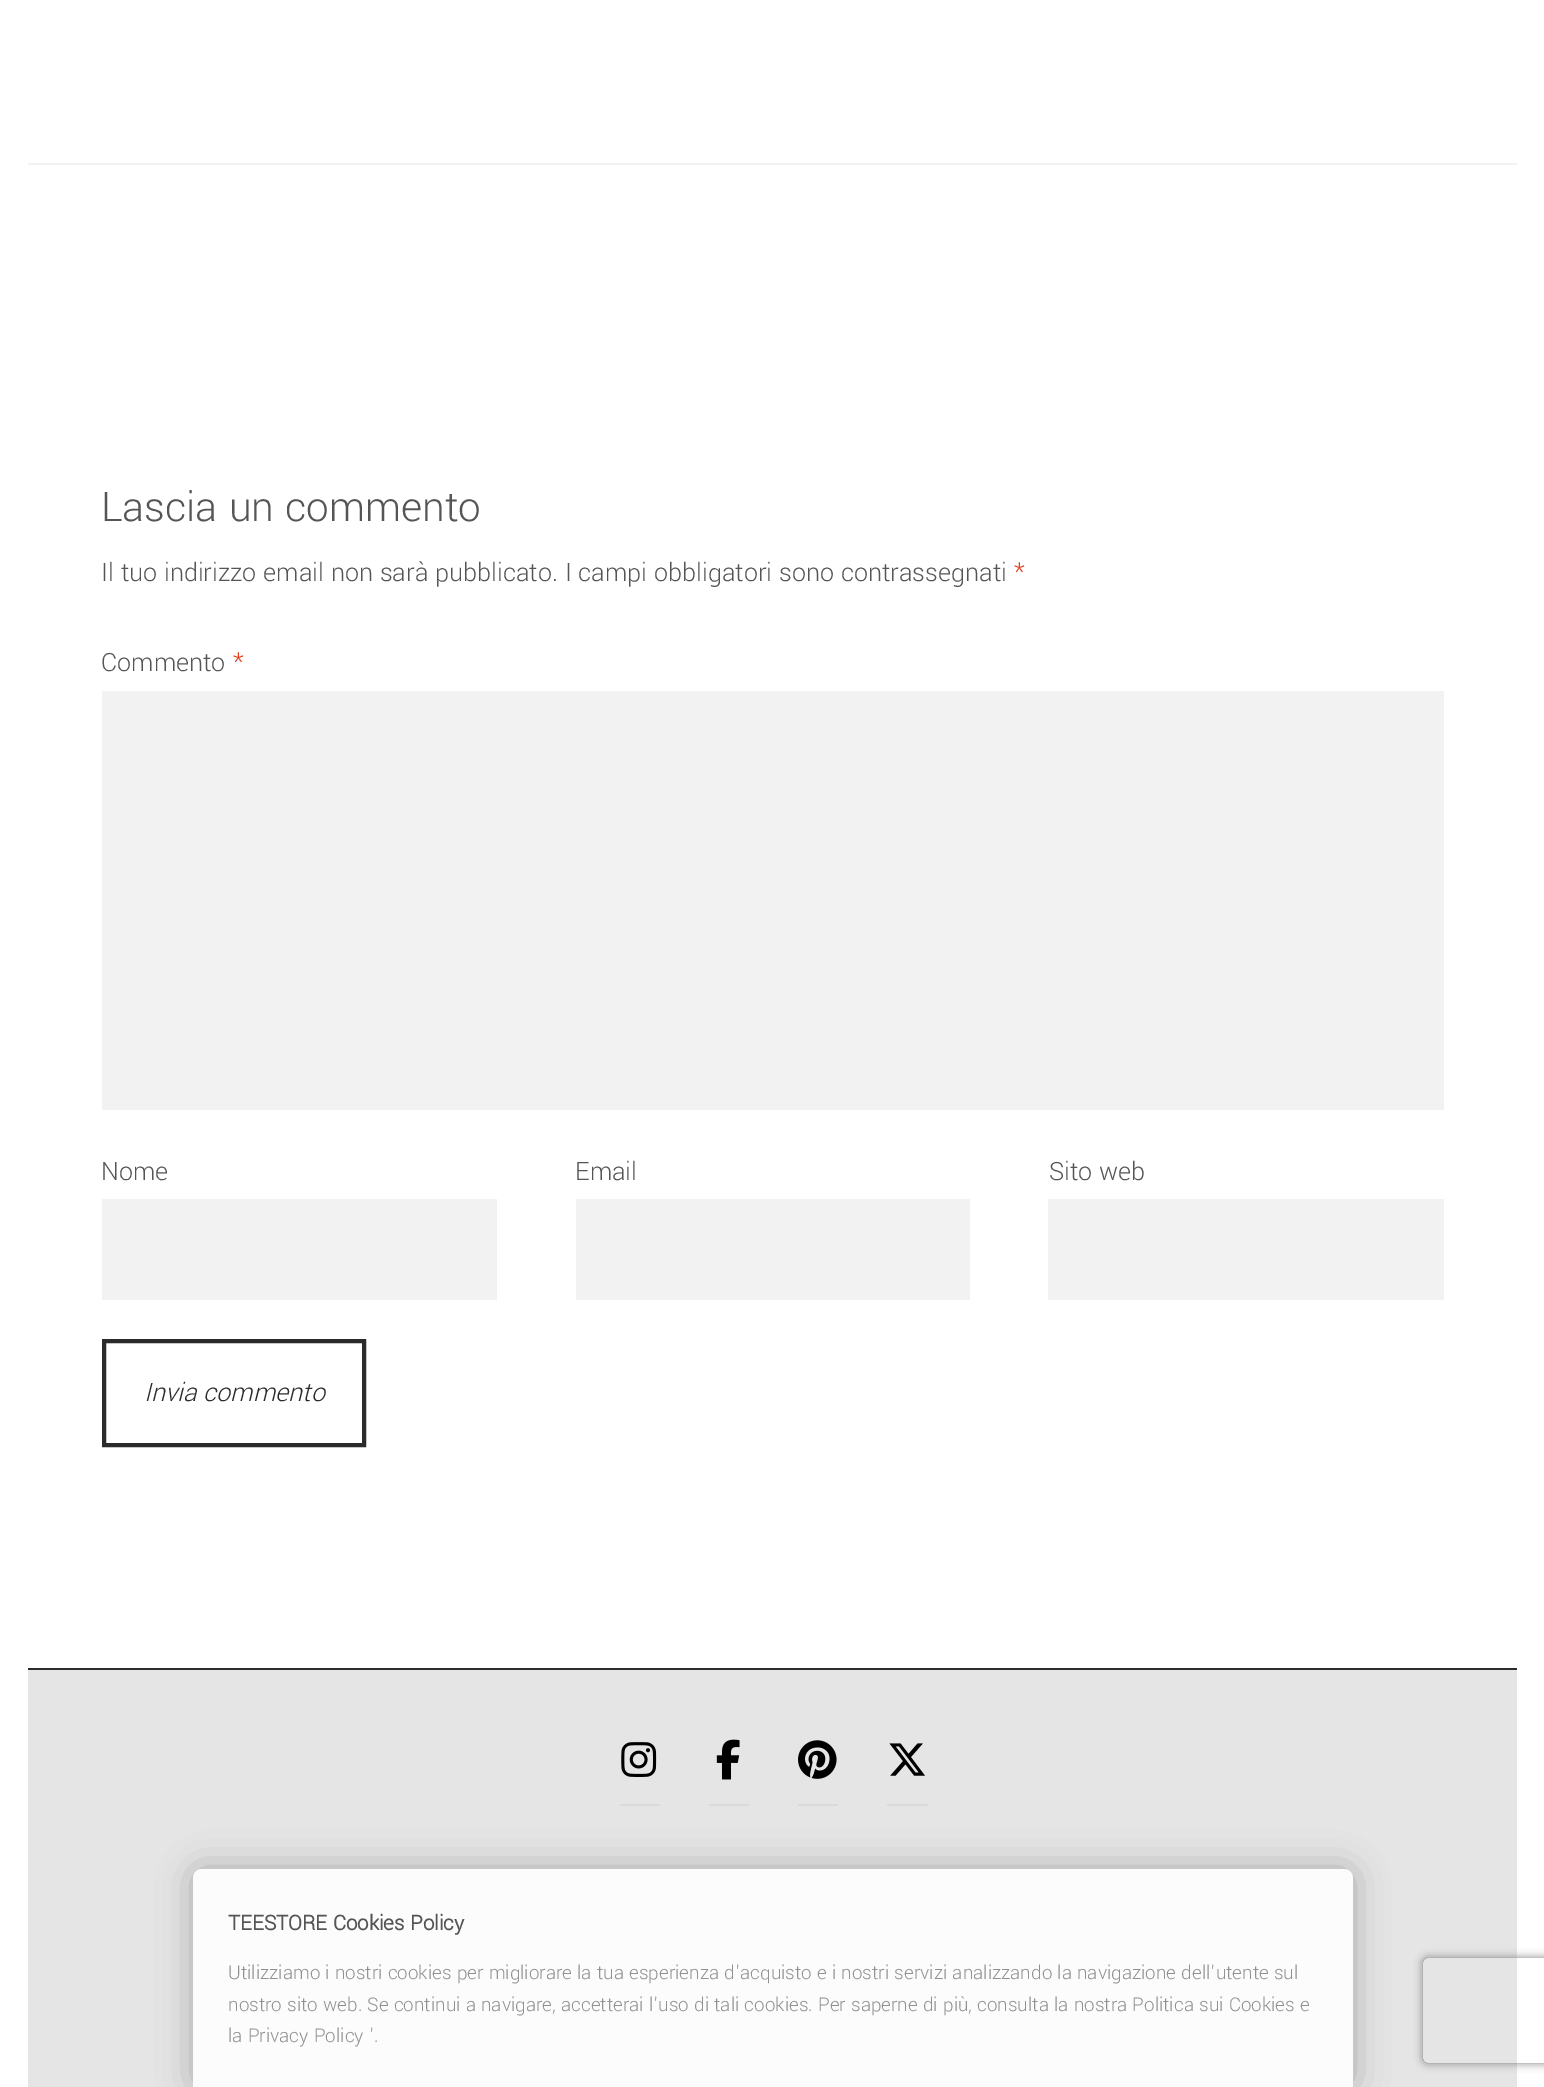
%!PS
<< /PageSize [1544 2087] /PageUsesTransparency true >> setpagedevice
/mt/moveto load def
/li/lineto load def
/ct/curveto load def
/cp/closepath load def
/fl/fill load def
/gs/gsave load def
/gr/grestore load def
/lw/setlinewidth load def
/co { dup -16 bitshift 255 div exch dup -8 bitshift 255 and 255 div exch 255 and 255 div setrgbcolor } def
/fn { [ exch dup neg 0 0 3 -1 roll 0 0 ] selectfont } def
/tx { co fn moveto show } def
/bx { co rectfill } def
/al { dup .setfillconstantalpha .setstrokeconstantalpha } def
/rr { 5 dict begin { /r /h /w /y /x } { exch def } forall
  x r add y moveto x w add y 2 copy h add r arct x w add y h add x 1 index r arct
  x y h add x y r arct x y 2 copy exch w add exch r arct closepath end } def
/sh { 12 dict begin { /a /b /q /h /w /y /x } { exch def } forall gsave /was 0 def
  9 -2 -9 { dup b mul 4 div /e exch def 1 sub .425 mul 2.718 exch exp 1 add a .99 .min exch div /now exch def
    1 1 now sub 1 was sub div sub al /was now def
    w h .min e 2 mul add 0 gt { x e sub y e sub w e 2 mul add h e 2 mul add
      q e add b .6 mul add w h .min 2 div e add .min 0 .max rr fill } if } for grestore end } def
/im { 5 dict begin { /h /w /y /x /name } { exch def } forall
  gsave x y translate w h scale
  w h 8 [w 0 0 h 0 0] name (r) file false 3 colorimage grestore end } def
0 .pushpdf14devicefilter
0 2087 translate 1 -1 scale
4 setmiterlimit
0 0 1544 2087 16#FFFFFF bx
28 163 1489 2 16#F2F2F2 bx
102 691 1342 419 16#F2F2F2 bx
102 1199 395 101 16#F2F2F2 bx
576 1199 394 101 16#F2F2F2 bx
1048 1199 396 101 16#F2F2F2 bx
16#2B2B2B co
4 lw
104 1341 260 104 rectstroke
28 1670 1489 417 16#E5E5E5 bx
28 1668 1489 2 16#2B2B2B bx
620 1804 40 2 16#DADADA bx
(media/1.raw) 621 1742 36 35 im
709 1804 40 2 16#DADADA bx
(media/2.raw) 716 1739 24 41 im
798 1804 40 2 16#DADADA bx
(media/3.raw) 798 1740 39 39 im
887 1804 41 2 16#DADADA bx
(media/4.raw) 889 1743 36 33 im
gs
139 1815 mt 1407 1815 li 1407 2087 li 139 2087 li cp 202 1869 mt 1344 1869 li 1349 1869 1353 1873 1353 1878 ct 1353 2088 li 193 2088 li 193 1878 li 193 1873 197 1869 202 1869 ct cp eoclip newpath
16#A8A8A8 co
193 1869 1160 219 9 17.5 1 sh
gr
0.9 al
16#FFFFFF co
202 1869 mt 1344 1869 li 1349 1869 1353 1873 1353 1878 ct 1353 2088 li 193 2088 li 193 1878 li 193 1873 197 1869 202 1869 ct cp fl
gs
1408 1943 mt 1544 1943 li 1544 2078 li 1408 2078 li cp 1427 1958 mt 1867 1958 li 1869 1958 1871 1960 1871 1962 ct 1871 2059 li 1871 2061 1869 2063 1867 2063 ct 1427 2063 li 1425 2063 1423 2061 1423 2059 ct 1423 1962 li 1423 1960 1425 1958 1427 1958 ct cp eoclip newpath
1 al
16#808080 co
1423 1958 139 105 4 4.5 1 sh
gr
1 al
(Lascia un commento) 101 521 /Yantramanav-Light 45.25 16#555555 tx
(Il tuo indirizzo email non sarà pubblicato. I campi obbligatori sono contrassegnati) 101 581 /Yantramanav-Light 28 16#555555 tx
(*) 1014 581 /Yantramanav-Light 28 16#E2401C tx
(Commento) 101 671 /Yantramanav-Light 28 16#555555 tx
(*) 233 671 /Yantramanav-Light 28 16#E2401C tx
(Nome) 101 1180 /Yantramanav-Light 28 16#555555 tx
(Email) 575 1180 /Yantramanav-Light 28 16#555555 tx
(Sito web) 1049 1180 /Yantramanav-Light 28 16#555555 tx
(Invia commento) 144 1401 /Yantramanav-LightItalic 28 16#2B2B2B tx
(TEESTORE Cookies Policy) 228 1930 /Yantramanav-Bold 22.75 16#555555 tx
(Utilizziamo i nostri cookies per migliorare la tua esperienza d'acquisto e i nostri servizi analizzando la navigazione dell'utente sul) 228 1979 /Yantramanav-Light 21 16#919191 tx
(nostro sito web. Se continui a navigare, accetterai l'uso di tali cookies. Per saperne di più, consulta la nostra Politica sui Cookies e) 228 2011 /Yantramanav-Light 21 16#919191 tx
(la Privacy Policy '.) 228 2042 /Yantramanav-Light 21 16#919191 tx
.poppdf14devicefilter showpage
